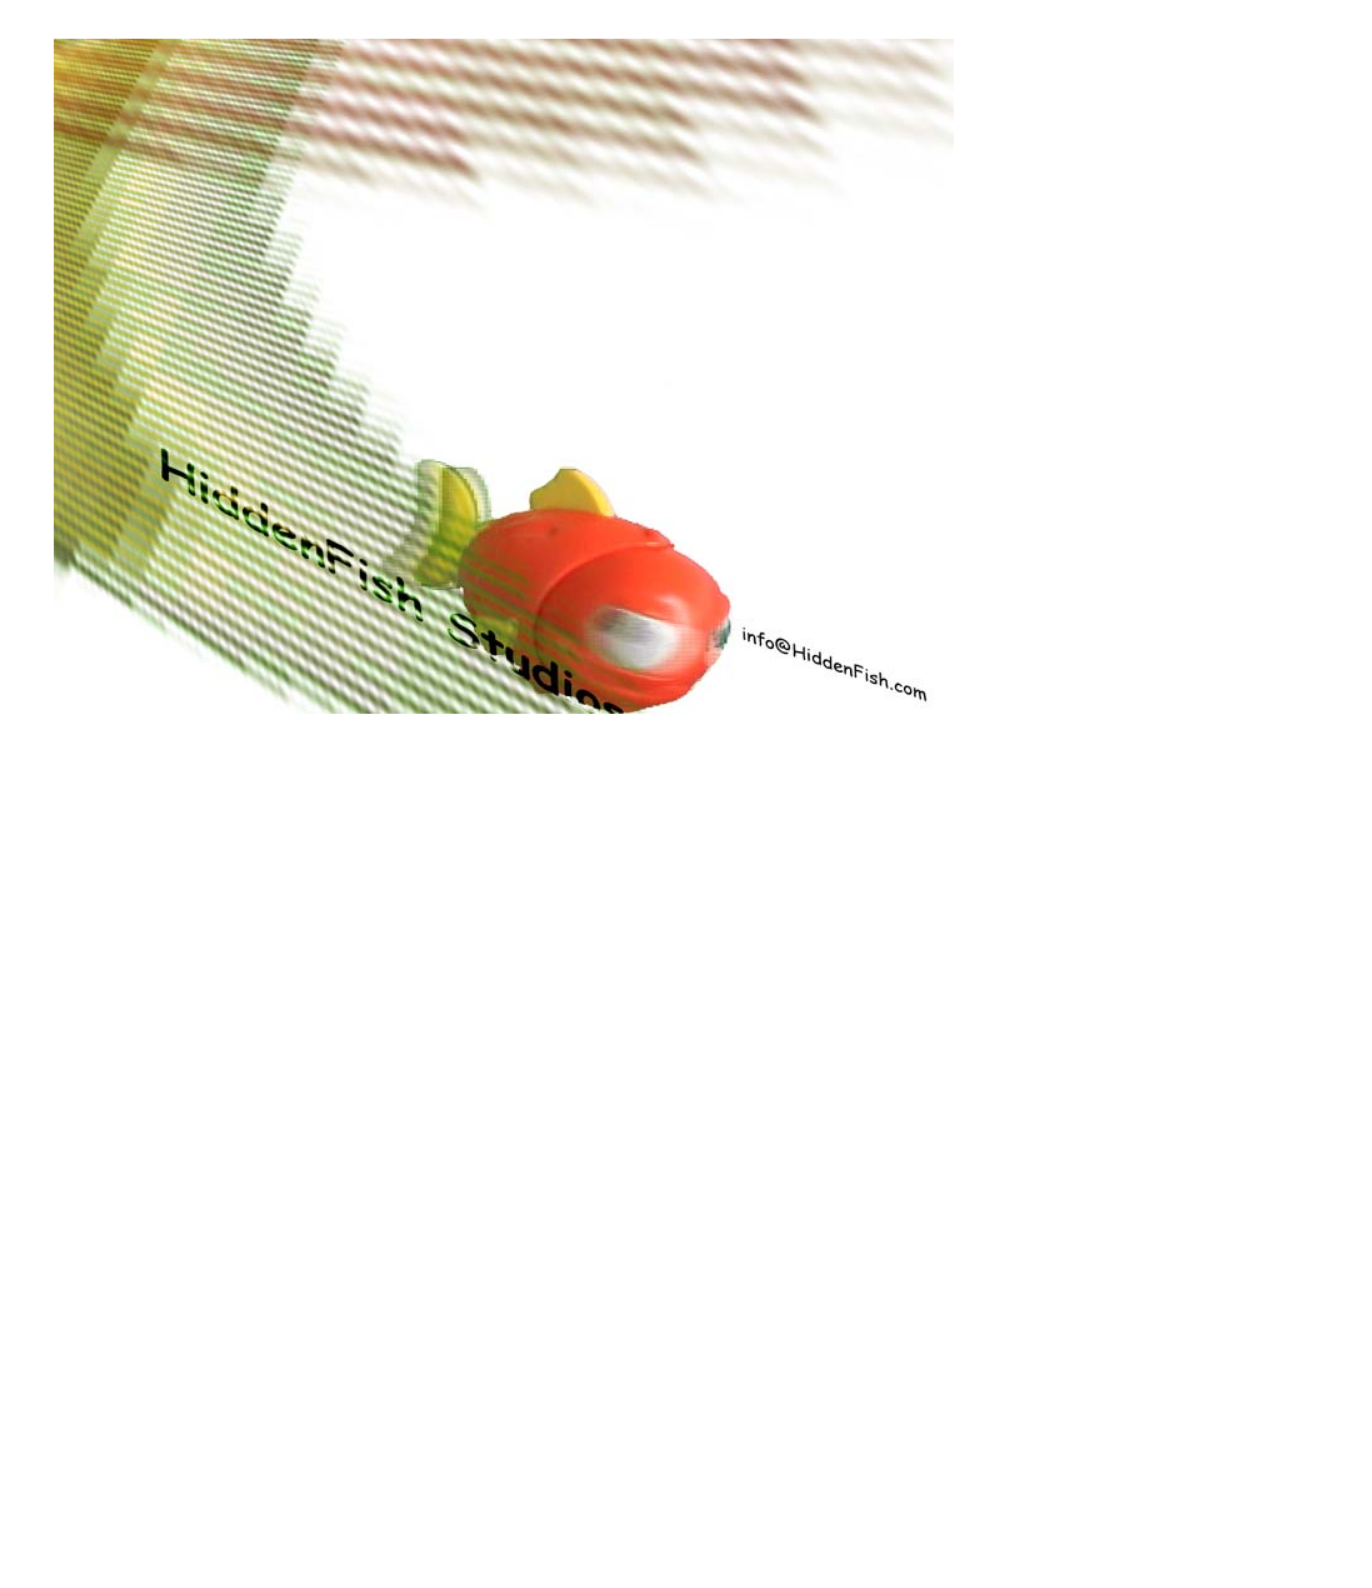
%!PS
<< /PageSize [1372 1588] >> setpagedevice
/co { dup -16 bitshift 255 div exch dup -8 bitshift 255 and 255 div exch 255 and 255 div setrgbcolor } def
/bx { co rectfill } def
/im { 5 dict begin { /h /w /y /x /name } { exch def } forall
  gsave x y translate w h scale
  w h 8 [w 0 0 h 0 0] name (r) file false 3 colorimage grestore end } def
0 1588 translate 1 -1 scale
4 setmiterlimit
0 0 1372 1588 16#FFFFFF bx
(media/1.raw) 53 38 901 676 im
showpage
